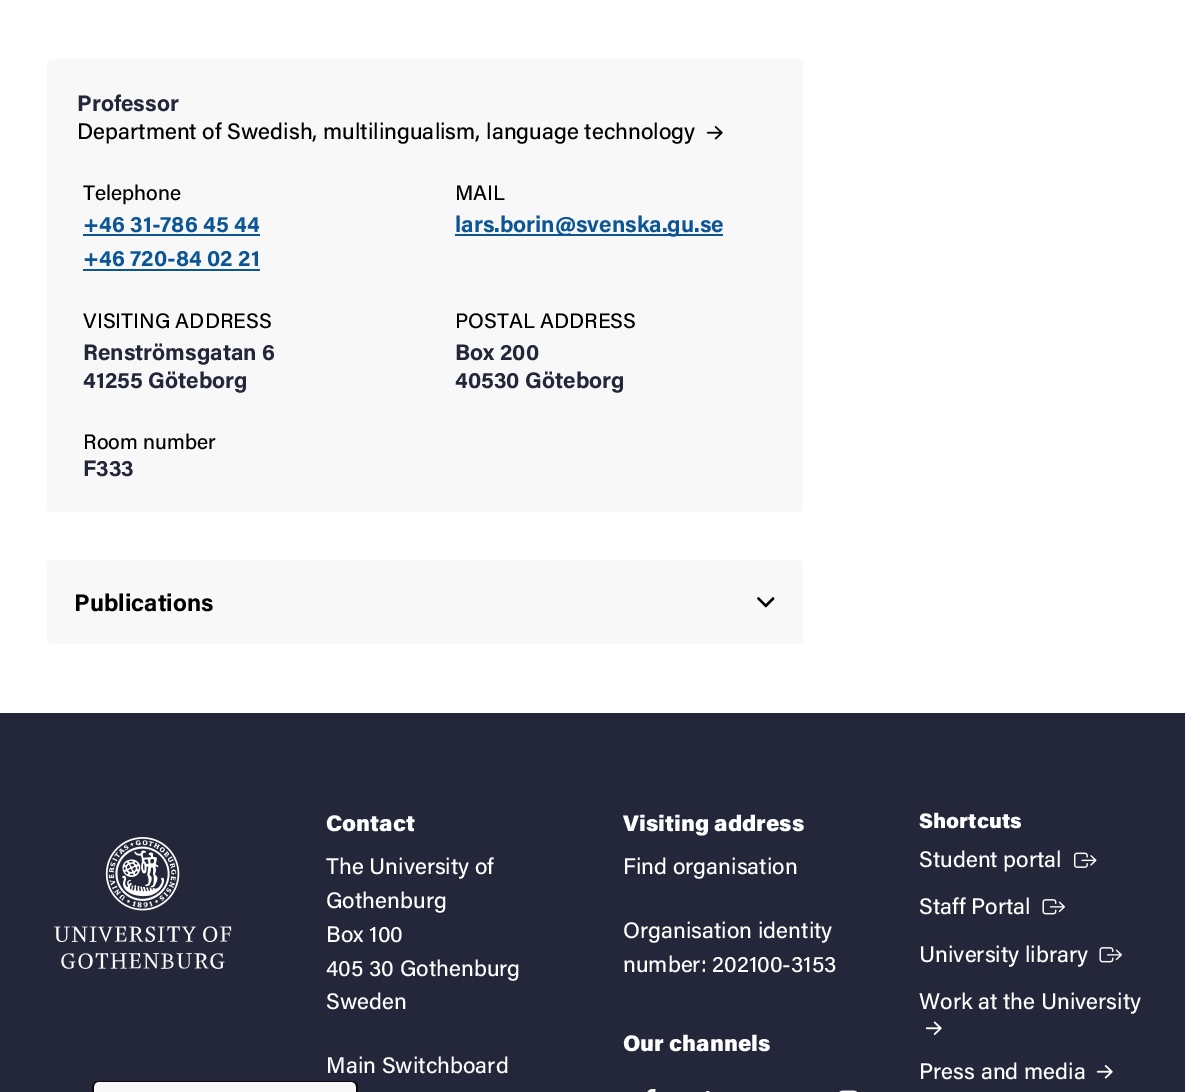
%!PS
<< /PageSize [1185 1092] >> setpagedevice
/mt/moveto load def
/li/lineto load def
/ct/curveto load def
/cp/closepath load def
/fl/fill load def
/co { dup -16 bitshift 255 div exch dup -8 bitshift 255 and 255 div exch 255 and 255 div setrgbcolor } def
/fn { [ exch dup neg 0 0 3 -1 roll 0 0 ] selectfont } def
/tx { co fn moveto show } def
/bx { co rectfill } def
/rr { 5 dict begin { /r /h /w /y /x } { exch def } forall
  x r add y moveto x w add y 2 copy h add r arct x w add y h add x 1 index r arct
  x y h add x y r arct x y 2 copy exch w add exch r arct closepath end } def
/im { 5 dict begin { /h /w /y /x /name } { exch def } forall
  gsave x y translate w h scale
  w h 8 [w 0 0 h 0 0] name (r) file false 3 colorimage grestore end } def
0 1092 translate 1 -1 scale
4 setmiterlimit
0 0 1185 1092 16#FFFFFF bx
16#F8F8F8 co
47 59 756 453 6 rr fl
(media/1.raw) 706 126 17 14 im
83 234 177 2 16#0C5696 bx
83 269 177 2 16#0C5696 bx
455 234 268 2 16#0C5696 bx
16#F8F8F8 co
47 560 756 84 6 rr fl
(media/2.raw) 757 597 18 11 im
0 713 1185 379 16#24273A bx
(media/3.raw) 54 837 178 132 im
(media/4.raw) 647 1089 9 3 im
(media/5.raw) 705 1091 5 1 im
(media/6.raw) 839 1090 19 2 im
(media/7.raw) 1074 852 23 16 im
(media/8.raw) 1042 899 23 16 im
(media/8.raw) 1099 947 23 16 im
(media/9.raw) 925 1021 17 14 im
(media/10.raw) 1096 1065 17 14 im
16#F8F8F8 co
98 1082 mt 351 1082 li 354.5 1082 357 1084.5 357 1088 ct 357 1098 li 92 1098 li 92 1088 li 92 1084.5 94.5 1082 98 1082 ct cp fl
16#0A0A0A co
98 1081 mt 352 1081 li 355 1081 358 1084 358 1087 ct 358 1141 li 92 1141 li 92 1087 li 92 1084 95 1081 98 1081 ct cp 98 1082 mt 352 1082 li 354 1082 356 1084 356 1087 ct 356 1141 li 94 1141 li 94 1087 li 94 1084 96 1082 98 1082 ct cp eofill
(Professor) 77 111 /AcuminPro-Bold 22.5 16#24273A tx
(Department of Swedish, multilingualism, language technology) 77 139 /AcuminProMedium-Medium 22.5 16#000000 tx
(Telephone) 83 200 /AcuminProMedium-Medium 21 16#000000 tx
(+46 31-786 45 44) 83 232 /AcuminPro-Bold 22.5 16#0C5696 tx
(+46 720-84 02 21) 83 266 /AcuminPro-Bold 22.5 16#0C5696 tx
(MAIL) 455 200 /AcuminProMedium-Medium 21 16#000000 tx
(lars.borin@svenska.gu.se) 455 232 /AcuminPro-Bold 22.5 16#0C5696 tx
(VISITING ADDRESS) 83 328 /AcuminProMedium-Medium 21 16#000000 tx
(Renströmsgatan 6) 83 360 /AcuminPro-Bold 22.5 16#24273A tx
(41255 Göteborg) 83 388 /AcuminPro-Bold 22.5 16#24273A tx
(Room number) 83 449 /AcuminProMedium-Medium 21 16#000000 tx
(F333) 83 476 /AcuminPro-Bold 22.5 16#24273A tx
(POSTAL ADDRESS) 455 328 /AcuminProMedium-Medium 21 16#000000 tx
(Box 200) 455 360 /AcuminPro-Bold 22.5 16#24273A tx
(40530 Göteborg) 455 388 /AcuminPro-Bold 22.5 16#24273A tx
(Publications) 74 611 /AcuminPro-Bold 24 16#000000 tx
(Contact) 326 831 /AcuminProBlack-Black 22.5 16#FEFEFE tx
(The University of) 326 874 /AcuminProMedium-Medium 22.5 16#FEFEFE tx
(Gothenburg) 326 908 /AcuminProMedium-Medium 22.5 16#FEFEFE tx
(Box 100) 326 942 /AcuminProMedium-Medium 22.5 16#FEFEFE tx
(405 30 Gothenburg) 326 976 /AcuminProMedium-Medium 22.5 16#FEFEFE tx
(Sweden) 326 1009 /AcuminProMedium-Medium 22.5 16#FEFEFE tx
(Main Switchboard) 326 1073 /AcuminProMedium-Medium 22.5 16#FEFEFE tx
(Visiting address) 623 831 /AcuminProBlack-Black 22.5 16#FEFEFE tx
(Find organisation) 623 874 /AcuminProMedium-Medium 22.5 16#FEFEFE tx
(Organisation identity) 623 938 /AcuminProMedium-Medium 22.5 16#FEFEFE tx
(number: 202100-3153) 623 972 /AcuminProMedium-Medium 22.5 16#FEFEFE tx
(Our channels) 623 1051 /AcuminProBlack-Black 22.5 16#FEFEFE tx
(Shortcuts) 919 828 /AcuminProBlack-Black 21 16#FEFEFE tx
(Student portal) 919 867 /AcuminProMedium-Medium 22.5 16#FEFEFE tx
(Staff Portal) 919 914 /AcuminProMedium-Medium 22.5 16#FEFEFE tx
(University library) 919 962 /AcuminProMedium-Medium 22.5 16#FEFEFE tx
(Work at the University) 919 1009 /AcuminProMedium-Medium 22.5 16#FEFEFE tx
(Press and media) 919 1079 /AcuminProMedium-Medium 22.5 16#FEFEFE tx
showpage
